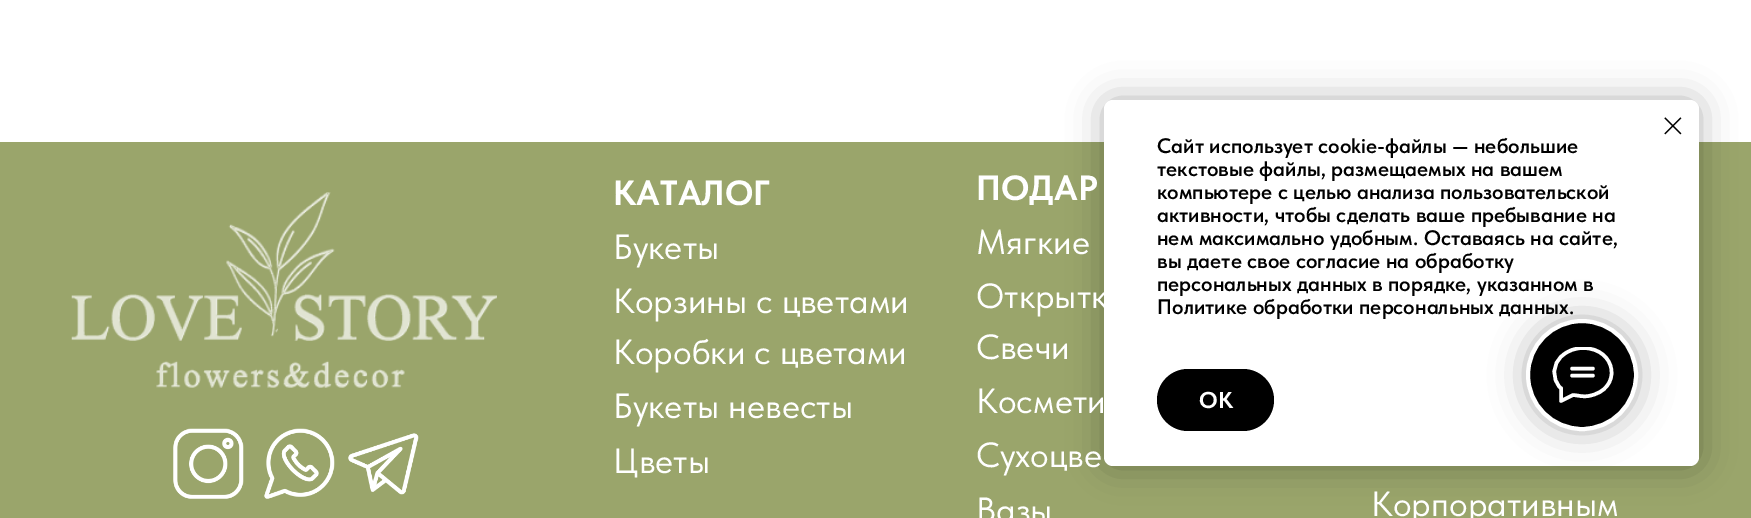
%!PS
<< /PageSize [1751 518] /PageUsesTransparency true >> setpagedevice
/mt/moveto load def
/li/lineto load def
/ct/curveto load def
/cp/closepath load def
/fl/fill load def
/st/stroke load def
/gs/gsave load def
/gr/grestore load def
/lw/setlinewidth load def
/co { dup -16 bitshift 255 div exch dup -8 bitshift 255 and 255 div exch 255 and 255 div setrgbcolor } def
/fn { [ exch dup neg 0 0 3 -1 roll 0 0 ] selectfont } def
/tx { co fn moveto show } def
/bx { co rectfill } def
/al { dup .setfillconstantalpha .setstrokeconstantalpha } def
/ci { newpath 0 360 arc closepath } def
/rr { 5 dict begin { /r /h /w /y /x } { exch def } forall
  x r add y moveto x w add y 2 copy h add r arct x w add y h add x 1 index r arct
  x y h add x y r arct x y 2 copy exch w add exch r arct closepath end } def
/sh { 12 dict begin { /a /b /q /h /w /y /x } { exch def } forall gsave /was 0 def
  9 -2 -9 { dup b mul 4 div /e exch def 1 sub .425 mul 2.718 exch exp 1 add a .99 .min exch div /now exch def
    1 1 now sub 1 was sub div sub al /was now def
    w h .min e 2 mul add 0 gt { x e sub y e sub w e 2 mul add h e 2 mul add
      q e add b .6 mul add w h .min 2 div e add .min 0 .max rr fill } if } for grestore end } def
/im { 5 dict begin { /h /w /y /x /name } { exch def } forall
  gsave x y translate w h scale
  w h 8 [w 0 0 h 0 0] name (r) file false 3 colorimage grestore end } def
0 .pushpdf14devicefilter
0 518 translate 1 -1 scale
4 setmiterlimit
0 0 1751 518 16#FFFFFF bx
0 142 1751 376 16#9AA56B bx
16#000000 co
1104 100 595 366 9 17.5 .3 sh
16#FFFFFF co
1104 100 595 366 9 rr fl
(media/1.raw) 1664 117 18 18 im
16#000000 co
1157 369 117 62 31 rr fl
(media/2.raw) 71 192 426 196 im
(media/3.raw) 173 428 71 71 im
(media/4.raw) 264 428 71 71 im
(media/5.raw) 348 433 71 62 im
1526 319 112 112 56 17.5 .3 sh
1582 375 54 ci gs fl gr
16#FFFFFF co
4 lw
st
gs
1552 347 62 56 rectclip
3.5 lw
1 setlinecap
1 setlinejoin
1572 368.5 mt 1593 368.5 li 1572 375.5 mt 1593 375.5 li 1560.5 388 mt 1551.5 378.5 1552 364 1562.5 355.5 ct 1568 350.5 1575.5 348 1583 348 ct 1617 348 1623 390 1588.5 396 ct 1582.5 397 1579 395.5 1573 395 ct 1561 401 li 1561 388 li cp st
gr
(Сайт использует cookie-файлы — небольшие) 1157 153 /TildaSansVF-SemiBold 21 16#000000 tx
(текстовые файлы, размещаемых на вашем) 1157 176 /TildaSansVF-SemiBold 21 16#000000 tx
(компьютере с целью анализа пользовательской) 1157 199 /TildaSansVF-SemiBold 21 16#000000 tx
(активности, чтобы сделать ваше пребывание на) 1157 222 /TildaSansVF-SemiBold 21 16#000000 tx
(нем максимально удобным. Оставаясь на сайте,) 1157 245 /TildaSansVF-SemiBold 21 16#000000 tx
(вы даете свое согласие на обработку) 1157 268 /TildaSansVF-SemiBold 21 16#000000 tx
(персональных данных в порядке, указанном в) 1157 291 /TildaSansVF-SemiBold 21 16#000000 tx
(Политике обработки персональных данных.) 1157 314 /TildaSansVF-SemiBold 21 16#000000 tx
(ОК) 1199 408 /TildaSansVF-Bold 23 16#FFFFFF tx
(КАТАЛОГ) 613 205 /TildaSansVF-Bold 35 16#FFFFFF tx
(ПОДАР) 976 200 /TildaSansVF-Bold 35 16#FFFFFF tx
(Букеты) 613 259 /TildaSansVF-Regular 35 16#FFFFFF tx
(Мягкие) 976 254 /TildaSansVF-Regular 35 16#FFFFFF tx
(Корзины с цветами) 613 313 /TildaSansVF-Regular 35 16#FFFFFF tx
(Открытк) 976 308 /TildaSansVF-Regular 35 16#FFFFFF tx
(Коробки с цветами) 613 364 /TildaSansVF-Regular 35 16#FFFFFF tx
(Свечи) 976 359 /TildaSansVF-Regular 35 16#FFFFFF tx
(Букеты невесты) 613 418 /TildaSansVF-Regular 35 16#FFFFFF tx
(Космети) 976 413 /TildaSansVF-Regular 35 16#FFFFFF tx
(Цветы) 613 473 /TildaSansVF-Regular 35 16#FFFFFF tx
(Сухоцве) 976 467 /TildaSansVF-Regular 35 16#FFFFFF tx
(Вазы) 976 522 /TildaSansVF-Regular 35 16#FFFFFF tx
(Корпоративным) 1371 516 /TildaSansVF-Regular 35 16#FFFFFF tx
.poppdf14devicefilter showpage
